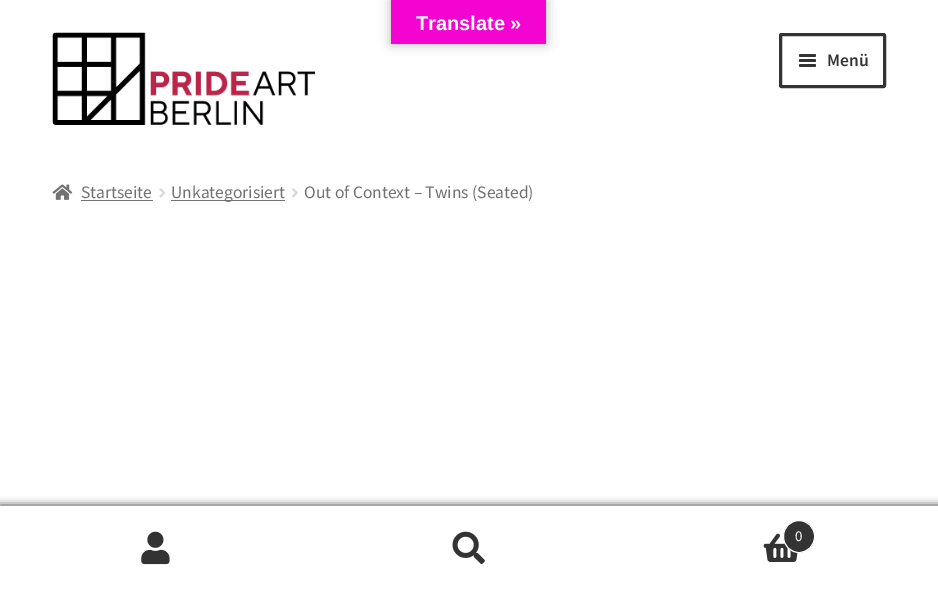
%!PS
<< /PageSize [938 591] /PageUsesTransparency true >> setpagedevice
/fl/fill load def
/st/stroke load def
/gs/gsave load def
/gr/grestore load def
/lw/setlinewidth load def
/co { dup -16 bitshift 255 div exch dup -8 bitshift 255 and 255 div exch 255 and 255 div setrgbcolor } def
/fn { [ exch dup neg 0 0 3 -1 roll 0 0 ] selectfont } def
/tx { co fn moveto show } def
/bx { co rectfill } def
/al { dup .setfillconstantalpha .setstrokeconstantalpha } def
/rr { 5 dict begin { /r /h /w /y /x } { exch def } forall
  x r add y moveto x w add y 2 copy h add r arct x w add y h add x 1 index r arct
  x y h add x y r arct x y 2 copy exch w add exch r arct closepath end } def
/sh { 12 dict begin { /a /b /q /h /w /y /x } { exch def } forall gsave /was 0 def
  9 -2 -9 { dup b mul 4 div /e exch def 1 sub .425 mul 2.718 exch exp 1 add a .99 .min exch div /now exch def
    1 1 now sub 1 was sub div sub al /was now def
    w h .min e 2 mul add 0 gt { x e sub y e sub w e 2 mul add h e 2 mul add
      q e add b .6 mul add w h .min 2 div e add .min 0 .max rr fill } if } for grestore end } def
/im { 5 dict begin { /h /w /y /x /name } { exch def } forall
  gsave x y translate w h scale
  w h 8 [w 0 0 h 0 0] name (r) file false 3 colorimage grestore end } def
0 .pushpdf14devicefilter
0 591 translate 1 -1 scale
4 setmiterlimit
0 0 938 591 16#FFFFFF bx
16#000000 co
391 0 155 44 0 5.5 .3 sh
391 0 155 44 16#F404D0 bx
(media/1.raw) 52 32 263 93 im
16#333333 co
3 lw
780.5 34.5 104 52 1 rr st
799 54 17 3 1.5 rr fl
799 59 17 3 1.5 rr fl
799 64 17 3 1.5 rr fl
(media/2.raw) 52 184 21 16 im
81 200 72 1 16#727272 bx
(media/3.raw) 159 188 7 10 im
171 200 114 1 16#727272 bx
(media/4.raw) 292 188 6 10 im
16#000000 co
0 505 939 86 0 4 .7 sh
0 506 938 85 16#FFFFFF bx
(media/5.raw) 141 531 29 34 im
(media/6.raw) 452 531 33 33 im
(media/7.raw) 763 533 35 29 im
16#333333 co
783.5 520.5 31 32 15.5 rr gs fl gr
16#FFFFFF co
1 lw
st
(Translate ») 416 30 /LiberationSans-Bold 20 16#FFFFFF tx
(Menü) 827 66 /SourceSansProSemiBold-SemiBold 17.5 16#333333 tx
(Startseite) 81 198 /SourceSansPro-Regular 17.5 16#727272 tx
(Unkategorisiert) 171 198 /SourceSansPro-Regular 17.5 16#727272 tx
(Out of Context – Twins \(Seated\)) 304 198 /SourceSansPro-Regular 17.5 16#727272 tx
(0) 795 541 /SourceSansPro-Regular 15 16#FFFFFF tx
.poppdf14devicefilter showpage
